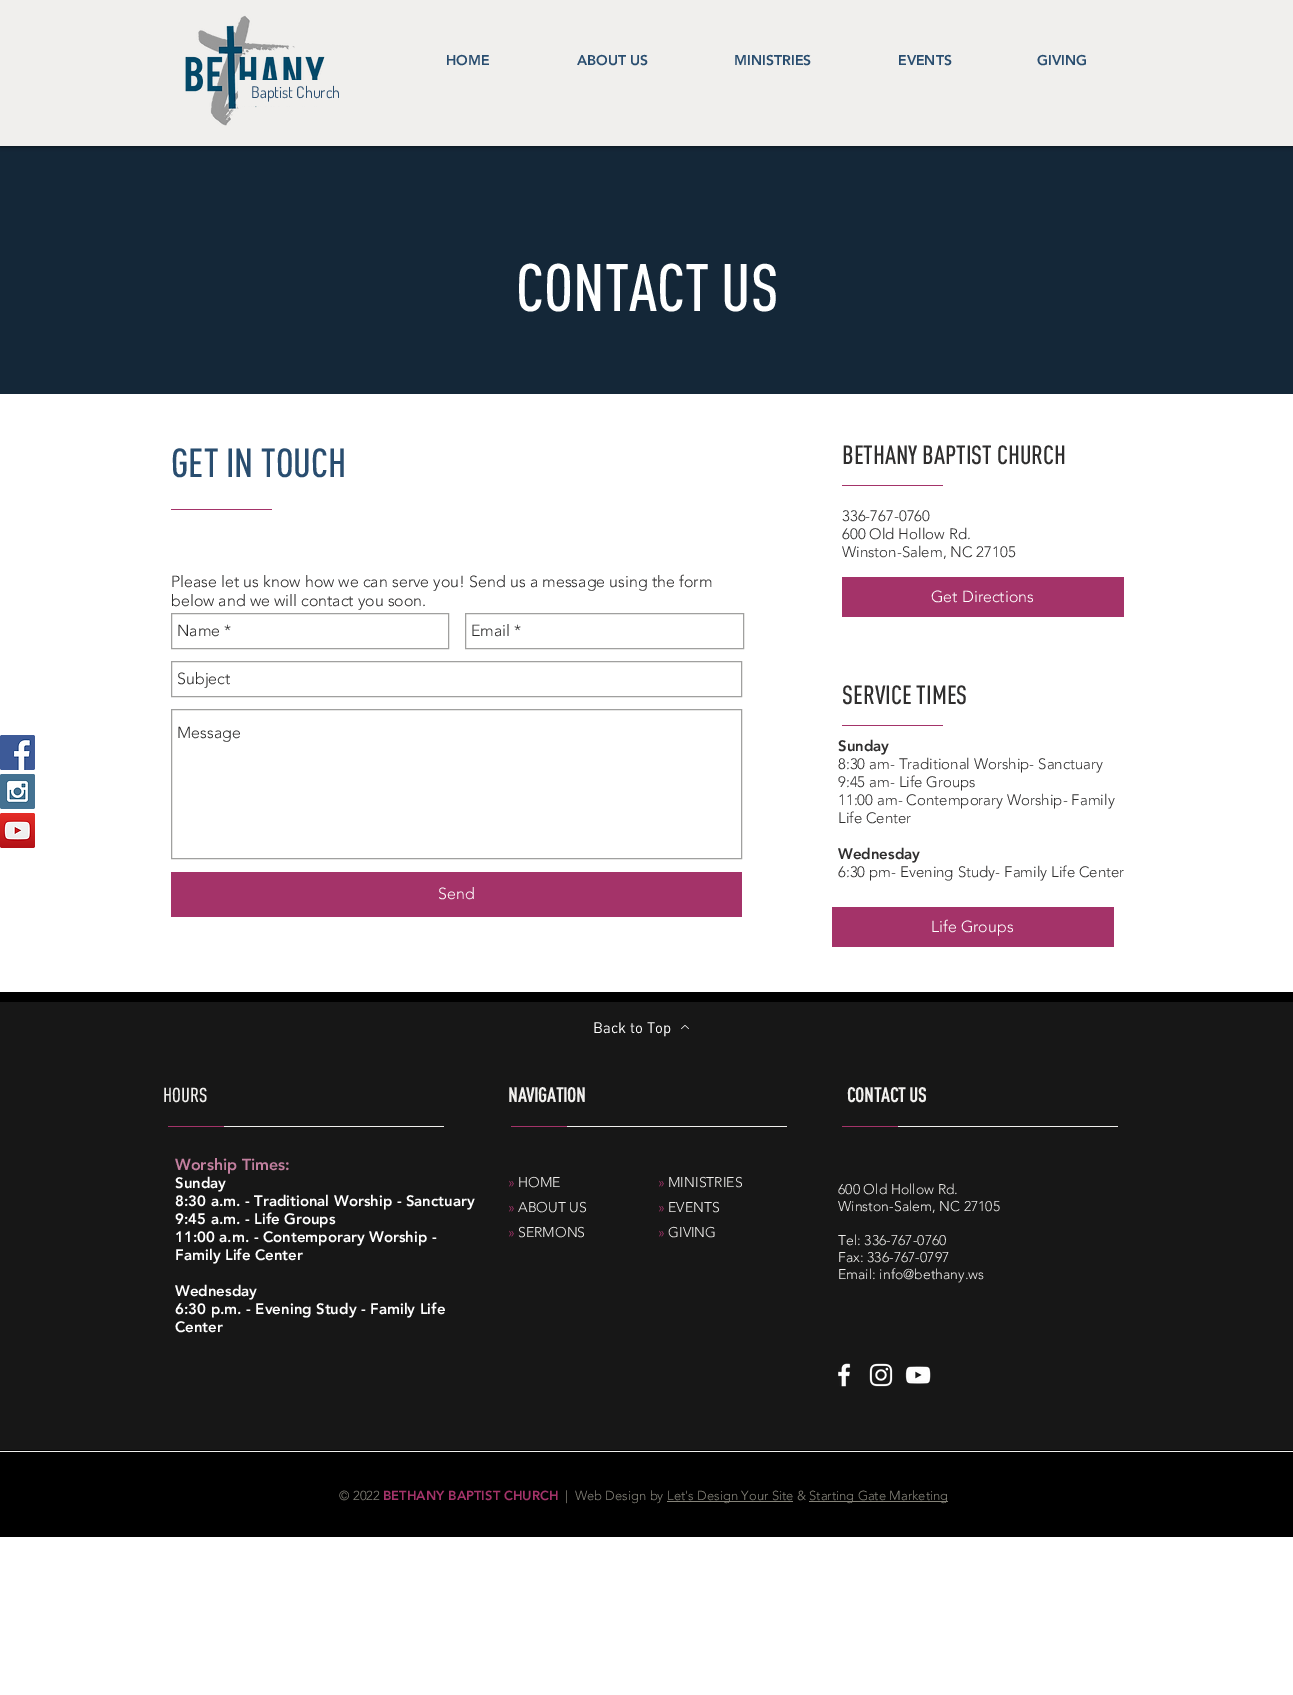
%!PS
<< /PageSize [1293 1695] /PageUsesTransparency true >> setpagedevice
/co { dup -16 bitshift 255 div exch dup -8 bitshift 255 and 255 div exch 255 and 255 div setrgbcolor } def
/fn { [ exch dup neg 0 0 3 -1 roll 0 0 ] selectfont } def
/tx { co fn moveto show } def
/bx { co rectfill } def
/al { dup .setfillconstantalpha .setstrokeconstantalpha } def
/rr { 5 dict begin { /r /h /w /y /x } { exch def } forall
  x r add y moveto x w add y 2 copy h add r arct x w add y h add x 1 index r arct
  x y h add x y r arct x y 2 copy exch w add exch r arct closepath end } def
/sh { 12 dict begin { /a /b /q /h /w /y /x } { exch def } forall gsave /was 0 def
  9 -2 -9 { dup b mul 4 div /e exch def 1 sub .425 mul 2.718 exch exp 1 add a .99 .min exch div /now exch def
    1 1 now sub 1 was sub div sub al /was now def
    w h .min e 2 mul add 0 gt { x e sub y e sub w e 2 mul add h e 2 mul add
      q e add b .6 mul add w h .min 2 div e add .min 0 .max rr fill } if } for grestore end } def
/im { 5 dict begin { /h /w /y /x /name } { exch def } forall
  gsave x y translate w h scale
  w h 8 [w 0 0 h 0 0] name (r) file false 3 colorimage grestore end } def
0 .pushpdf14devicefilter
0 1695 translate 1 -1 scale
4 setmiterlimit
0 0 1293 1695 16#FFFFFF bx
0 146 1293 248 16#142738 bx
16#000000 co
0 0 1293 146 0 2.5 .7 sh
0 0 1293 146 16#F0EFED bx
(media/1.raw) 185 15 140 111 im
238 80 87 26 16#F0EFED bx
(media/2.raw) 0 735 35 35 im
(media/3.raw) 0 774 35 35 im
(media/4.raw) 0 813 35 35 im
842 485 101 1 16#A43369 bx
171 509 101 1 16#A43369 bx
842 577 282 40 16#A43369 bx
16#A0A09F co
171.5 613.5 277 35 rectstroke
465.5 613.5 278 35 rectstroke
171.5 661.5 570 35 rectstroke
171.5 709.5 570 149 rectstroke
171 872 571 45 16#A43369 bx
842 725 101 1 16#A43369 bx
832 907 282 40 16#A43369 bx
0 992 1293 545 16#000000 bx
0 1002 1293 448 16#171717 bx
(media/5.raw) 681 1025 8 5 im
168 1126 56 1 16#A43369 bx
224 1126 220 1 16#F0EFED bx
511 1126 56 1 16#A43369 bx
567 1126 220 1 16#F0EFED bx
842 1126 56 1 16#A43369 bx
898 1126 220 1 16#F0EFED bx
(media/6.raw) 838 1363 13 24 im
(media/7.raw) 869 1363 24 24 im
(media/8.raw) 905 1366 26 18 im
0 1451 1293 1 16#F0EFED bx
667 1501 126 1 16#858379 bx
809 1501 139 1 16#858379 bx
(HOME) 446 65 /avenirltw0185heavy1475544-Black 14 16#294D6F tx
(ABOUT US) 577 65 /avenirltw0185heavy1475544-Black 14 16#294D6F tx
(MINISTRIES) 734 65 /avenirltw0185heavy1475544-Black 14 16#294D6F tx
(EVENTS) 898 65 /avenirltw0185heavy1475544-Black 14 16#294D6F tx
(GIVING) 1037 65 /avenirltw0185heavy1475544-Black 14 16#294D6F tx
(Baptist Church) 251 98 /Dosis-Regular 16 16#294D6F tx
(CONTACT US) 516 311 /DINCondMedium-Medium 66 16#FFFFFF tx
(GET IN TOUCH) 171 477 /DINCondMedium-Medium 40 16#294D6F tx
(BETHANY BAPTIST CHURCH) 842 464 /DINCondMedium-Medium 26 16#2F2E2E tx
(336-767-0760) 842 521 /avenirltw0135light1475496-Light 15 16#2F2E2E tx
(600 Old Hollow Rd.) 842 539 /avenirltw0135light1475496-Light 15 16#2F2E2E tx
(Winston-Salem, NC 27105) 842 557 /avenirltw0135light1475496-Light 15 16#2F2E2E tx
(Please let us know how we can serve you! Send us a message using the form) 171 587 /avenirltw0135light1475496-Light 16 16#2F2E2E tx
(below and we will contact you soon.) 171 606 /avenirltw0135light1475496-Light 16 16#2F2E2E tx
(Get Directions) 931 602 /avenirltw0135light1475496-Light 16 16#FFFFFF tx
(Name *) 177 636 /avenirltw0135light1475496-Light 16 16#2F2E2E tx
(Email *) 471 636 /avenirltw0135light1475496-Light 16 16#2F2E2E tx
(Subject) 177 684 /avenirltw0135light1475496-Light 16 16#2F2E2E tx
(Message) 177 738 /avenirltw0135light1475496-Light 16 16#2F2E2E tx
(Send) 438 899 /avenirltw0135light1475496-Light 16 16#FFFFFF tx
(SERVICE TIMES) 842 704 /DINCondMedium-Medium 26 16#2F2E2E tx
(Sunday) 838 751 /avenirltw0185heavy1475544-Black 15 16#2F2E2E tx
(8:30 am- Traditional Worship- Sanctuary) 838 769 /avenirltw0135light1475496-Light 15 16#2F2E2E tx
(9:45 am- Life Groups) 838 787 /avenirltw0135light1475496-Light 15 16#2F2E2E tx
(11:00 am- Contemporary Worship- Family) 838 805 /avenirltw0135light1475496-Light 15 16#2F2E2E tx
(Life Center) 838 823 /avenirltw0135light1475496-Light 15 16#2F2E2E tx
(Wednesday) 838 859 /avenirltw0185heavy1475544-Black 15 16#2F2E2E tx
(6:30 pm- Evening Study- Family Life Center) 838 877 /avenirltw0135light1475496-Light 15 16#2F2E2E tx
(Life Groups) 931 932 /avenirltw0135light1475496-Light 16 16#FFFFFF tx
(Back to Top) 593 1033 /DIN-Regular 15 16#FFFFFF tx
(HOURS) 163 1102 /DINCondMedium-Medium 20 16#F0EFED tx
(NAVIGATION) 508 1102 /DINCondMedium-Bold 20 16#F0EFED tx
(CONTACT US) 847 1102 /DINCondMedium-Bold 20 16#F0EFED tx
(Worship Times:) 175 1170 /avenirltw0185heavy1475544-Black 16 16#C27F9F tx
(Sunday) 175 1188 /avenirltw0185heavy1475544-Black 15 16#FFFFFF tx
(8:30 a.m. - Traditional Worship - Sanctuary) 175 1206 /avenirltw0185heavy1475544-Black 15 16#FFFFFF tx
(9:45 a.m. - Life Groups) 175 1224 /avenirltw0185heavy1475544-Black 15 16#FFFFFF tx
(11:00 a.m. - Contemporary Worship -) 175 1242 /avenirltw0185heavy1475544-Black 15 16#FFFFFF tx
(Family Life Center) 175 1260 /avenirltw0185heavy1475544-Black 15 16#FFFFFF tx
(Wednesday) 175 1296 /avenirltw0185heavy1475544-Black 15 16#FFFFFF tx
(6:30 p.m. - Evening Study - Family Life) 175 1314 /avenirltw0185heavy1475544-Black 15 16#FFFFFF tx
(Center) 175 1332 /avenirltw0185heavy1475544-Black 15 16#FFFFFF tx
(») 508 1187 /avenirltw0135light1475496-Light 14 16#A43369 tx
(HOME) 518 1187 /avenirltw0135light1475496-Light 14 16#F0EFED tx
(») 508 1212 /avenirltw0135light1475496-Light 14 16#A43369 tx
(ABOUT US) 518 1212 /avenirltw0135light1475496-Light 14 16#F0EFED tx
(») 508 1237 /avenirltw0135light1475496-Light 14 16#A43369 tx
(SERMONS) 518 1237 /avenirltw0135light1475496-Light 14 16#F0EFED tx
(») 658 1187 /avenirltw0135light1475496-Light 14 16#A43369 tx
(MINISTRIES) 668 1187 /avenirltw0135light1475496-Light 14 16#F0EFED tx
(») 658 1212 /avenirltw0135light1475496-Light 14 16#A43369 tx
(EVENTS) 668 1212 /avenirltw0135light1475496-Light 14 16#F0EFED tx
(») 658 1237 /avenirltw0135light1475496-Light 14 16#A43369 tx
(GIVING) 668 1237 /avenirltw0135light1475496-Light 14 16#F0EFED tx
(600 Old Hollow Rd.) 838 1194 /avenirltw0135light1475496-Light 14 16#F0EFED tx
(Winston-Salem, NC 27105) 838 1211 /avenirltw0135light1475496-Light 14 16#F0EFED tx
(Tel: 336-767-0760) 838 1245 /avenirltw0135light1475496-Light 14 16#F0EFED tx
(Fax: 336-767-0797) 838 1262 /avenirltw0135light1475496-Light 14 16#F0EFED tx
(Email: info@bethany.ws) 838 1279 /avenirltw0135light1475496-Light 14 16#F0EFED tx
(© 2022) 339 1500 /avenirltw0135light1475496-Light 13 16#858379 tx
(BETHANY BAPTIST CHURCH) 383 1500 /avenirltw0185heavy1475544-Black 13 16#A43369 tx
(|  Web Design by) 565 1500 /avenirltw0135light1475496-Light 13 16#858379 tx
(Let's Design Your Site &) 667 1500 /avenirltw0135light1475496-Light 13 16#858379 tx
(Starting Gate Marketing) 809 1500 /avenirltw0135light1475496-Light 13 16#858379 tx
.poppdf14devicefilter showpage
